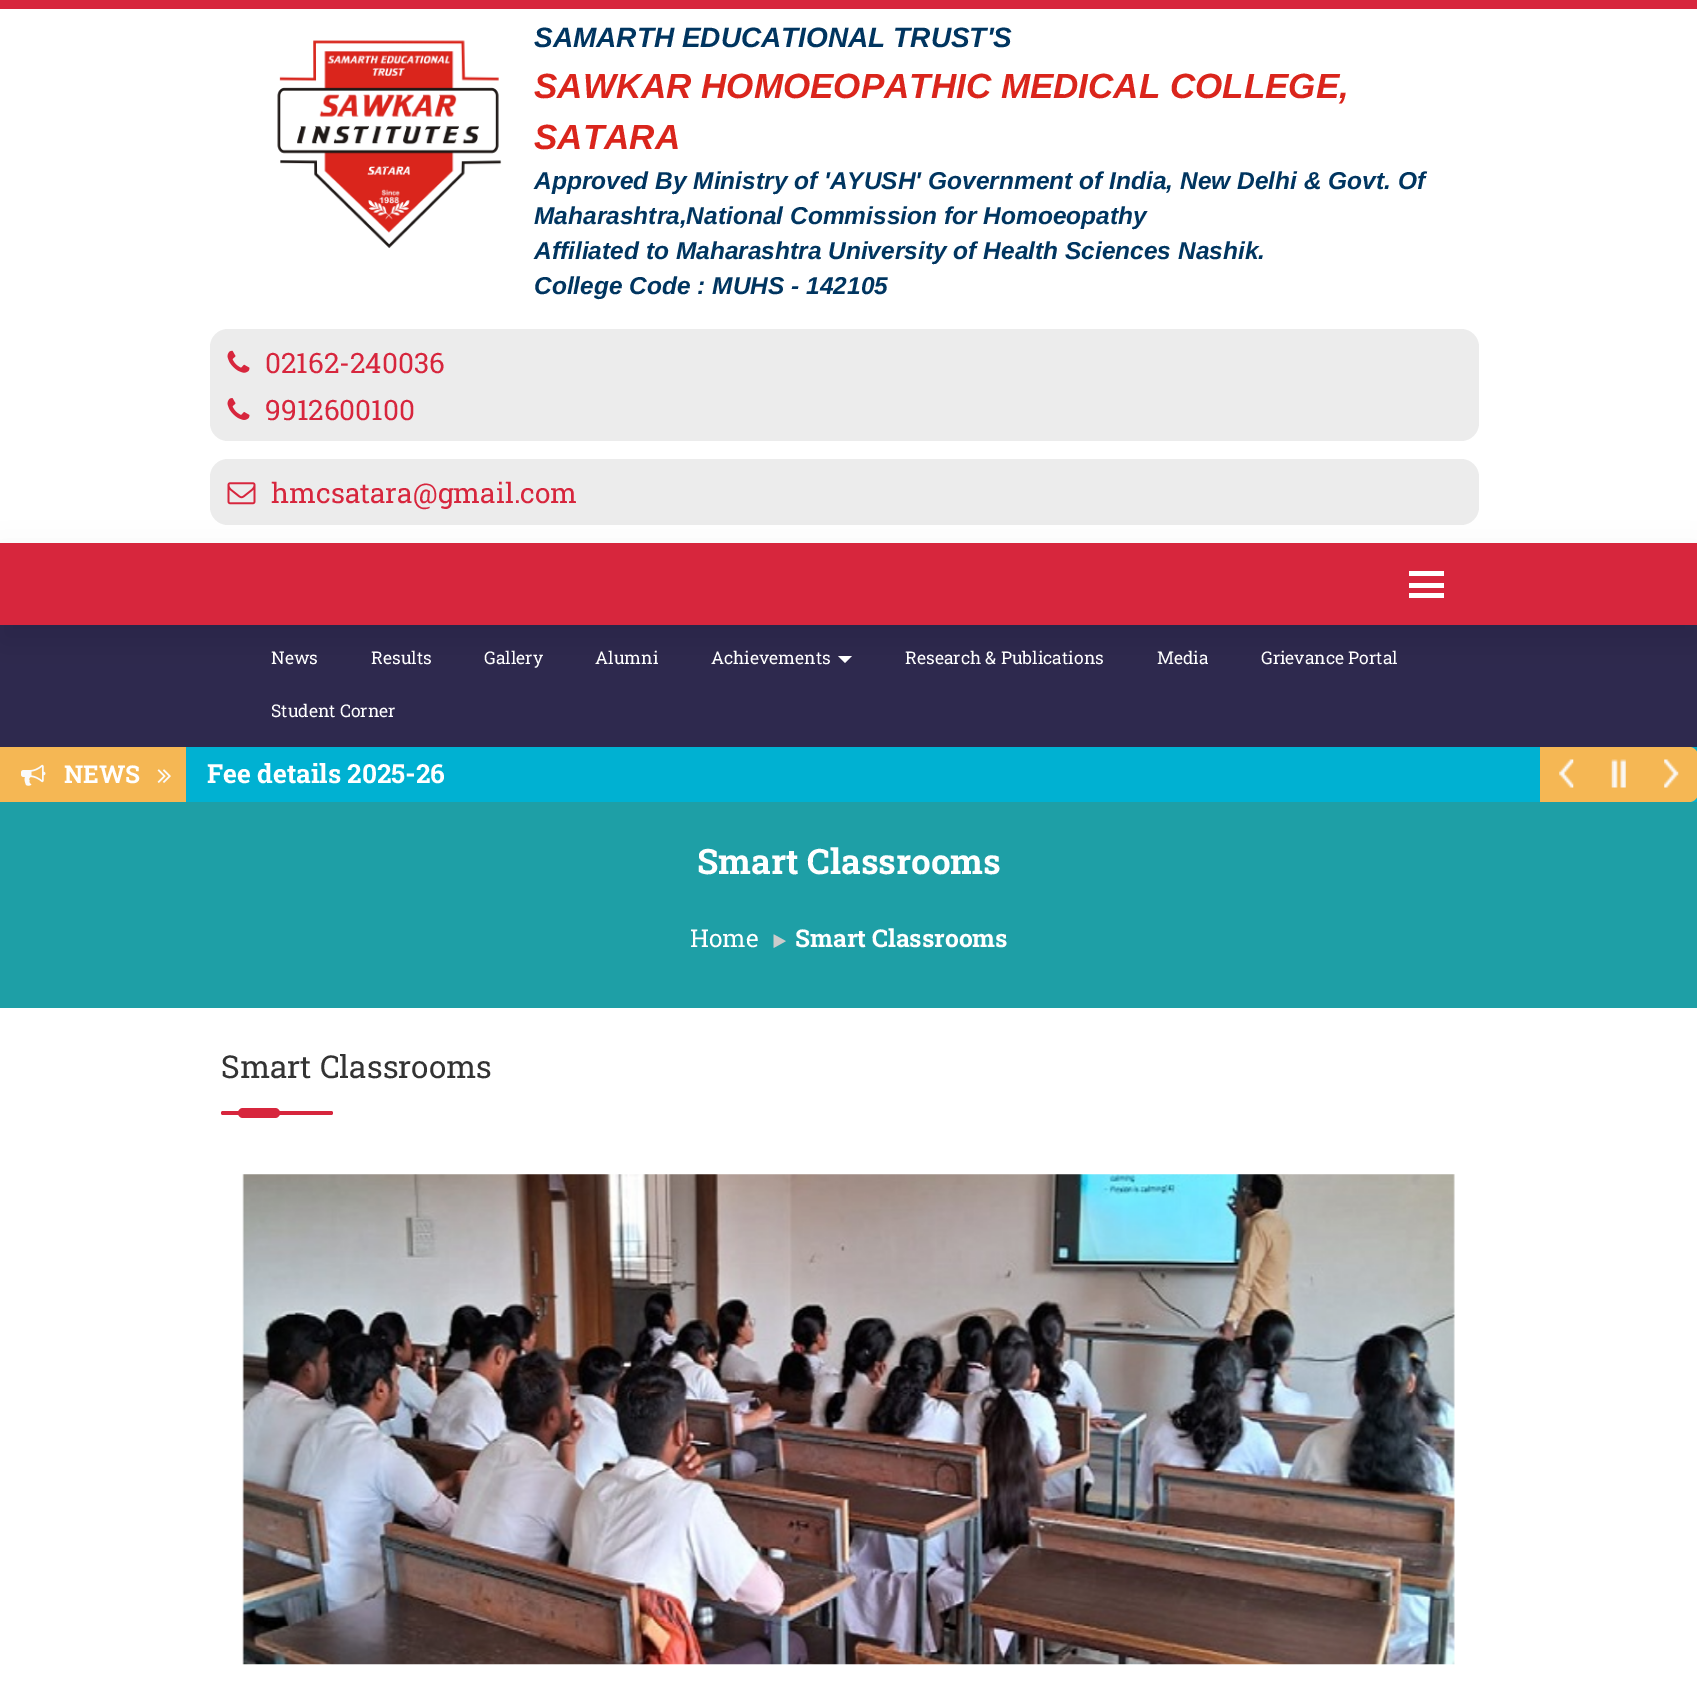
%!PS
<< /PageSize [1697 1701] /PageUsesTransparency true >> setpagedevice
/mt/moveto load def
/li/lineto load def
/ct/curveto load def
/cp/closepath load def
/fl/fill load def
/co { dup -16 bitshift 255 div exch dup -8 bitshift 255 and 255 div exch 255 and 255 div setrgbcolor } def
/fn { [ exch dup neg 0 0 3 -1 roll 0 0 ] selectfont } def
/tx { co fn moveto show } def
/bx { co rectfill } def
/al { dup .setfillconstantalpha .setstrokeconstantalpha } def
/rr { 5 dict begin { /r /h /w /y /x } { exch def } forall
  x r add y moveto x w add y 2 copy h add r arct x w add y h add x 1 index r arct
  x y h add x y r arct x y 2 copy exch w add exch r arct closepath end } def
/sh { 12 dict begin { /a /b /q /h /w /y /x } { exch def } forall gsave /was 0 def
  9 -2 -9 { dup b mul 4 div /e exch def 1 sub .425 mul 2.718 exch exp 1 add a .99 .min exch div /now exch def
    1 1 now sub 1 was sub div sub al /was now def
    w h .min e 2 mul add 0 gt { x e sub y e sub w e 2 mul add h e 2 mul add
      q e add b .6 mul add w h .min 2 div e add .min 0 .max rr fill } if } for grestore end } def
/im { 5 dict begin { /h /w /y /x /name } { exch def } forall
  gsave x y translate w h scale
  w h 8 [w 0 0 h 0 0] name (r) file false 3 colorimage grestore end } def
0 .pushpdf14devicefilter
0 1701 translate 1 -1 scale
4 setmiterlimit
0 0 1697 1701 16#FFFFFF bx
0 0 1697 9 16#D7263D bx
(media/1.raw) 277 40 225 209 im
16#ECECEC co
210 329 1269 112 18 rr fl
(media/2.raw) 227 350 23 23 im
(media/3.raw) 227 398 23 22 im
210 459 1269 66 18 rr fl
(media/4.raw) 227 482 29 23 im
0 625 1697 122 16#2E294E bx
16#000000 co
0 560 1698 82 0 17.5 .1 sh
0 543 1697 82 16#D7263D bx
1409 571 35 5 16#FFFFFF bx
1409 583 35 5 16#FFFFFF bx
1409 593 35 5 16#FFFFFF bx
838 656 mt 852 656 li 845 663 li cp fl
186 747 1511 55 16#00B1D2 bx
0 747 186 55 16#F5B754 bx
(media/5.raw) 21 764 25 22 im
(media/6.raw) 157 769 14 14 im
1540 747 105 55 16#F5B754 bx
(media/7.raw) 1559 759 15 29 im
1645 747 mt 1689 747 li 1694 747 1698 751 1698 756 ct 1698 793 li 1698 798 1694 802 1689 802 ct 1645 802 li cp fl
(media/8.raw) 1664 759 15 29 im
(media/9.raw) 1611 759 15 29 im
0 802 1697 206 16#1E9FA6 bx
(media/10.raw) 773 934 13 14 im
16#D7263D co
238 1108 42 10 5 rr fl
221 1111 112 4 2 rr fl
(media/11.raw) 242 1174 1213 491 im
(SAMARTH EDUCATIONAL TRUST'S) 534 47 /LiberationSans-BoldItalic 28 16#003560 tx
(SAWKAR HOMOEOPATHIC MEDICAL COLLEGE,) 534 98 /LiberationSans-BoldItalic 35 16#DA251C tx
(SATARA) 534 149 /LiberationSans-BoldItalic 35 16#DA251C tx
(Approved By Ministry of 'AYUSH' Government of India, New Delhi & Govt. Of) 534 189 /LiberationSans-BoldItalic 24.5 16#003560 tx
(Maharashtra,National Commission for Homoeopathy) 534 224 /LiberationSans-BoldItalic 24.5 16#003560 tx
(Affiliated to Maharashtra University of Health Sciences Nashik.) 534 259 /LiberationSans-BoldItalic 24.5 16#003560 tx
(College Code : MUHS - 142105) 534 294 /LiberationSans-BoldItalic 24.5 16#003560 tx
(02162-240036) 265 373 /RobotoSlab-Regular 28 16#D7263D tx
(9912600100) 265 420 /RobotoSlab-Regular 28 16#D7263D tx
(hmcsatara@gmail.com) 271 503 /RobotoSlab-Regular 28 16#D7263D tx
(News) 271 664 /RobotoSlab-Regular 17.5 16#FFFFFF tx
(Results) 371 664 /RobotoSlab-Regular 17.5 16#FFFFFF tx
(Gallery) 484 664 /RobotoSlab-Regular 17.5 16#FFFFFF tx
(Alumni) 595 664 /RobotoSlab-Regular 17.5 16#FFFFFF tx
(Achievements) 711 664 /RobotoSlab-Regular 17.5 16#FFFFFF tx
(Research & Publications) 905 664 /RobotoSlab-Regular 17.5 16#FFFFFF tx
(Media) 1157 664 /RobotoSlab-Regular 17.5 16#FFFFFF tx
(Grievance Portal) 1261 664 /RobotoSlab-Regular 17.5 16#FFFFFF tx
(Student Corner) 271 717 /RobotoSlab-Regular 17.5 16#FFFFFF tx
(NEWS) 64 783 /RobotoSlab-Bold 24.5 16#FFFFFF tx
(Fee details 2025-26) 207 783 /RobotoSlab-Bold 26.25 16#FFFFFF tx
(Smart Classrooms) 697 874 /RobotoSlab-Bold 35 16#FFFFFF tx
(Home) 690 947 /RobotoSlab-Regular 24.5 16#FFFFFF tx
(Smart Classrooms) 795 947 /RobotoSlab-Bold 24.5 16#FFFFFF tx
(Smart Classrooms) 221 1078 /RobotoSlab-Regular 31.5 16#333333 tx
.poppdf14devicefilter showpage
